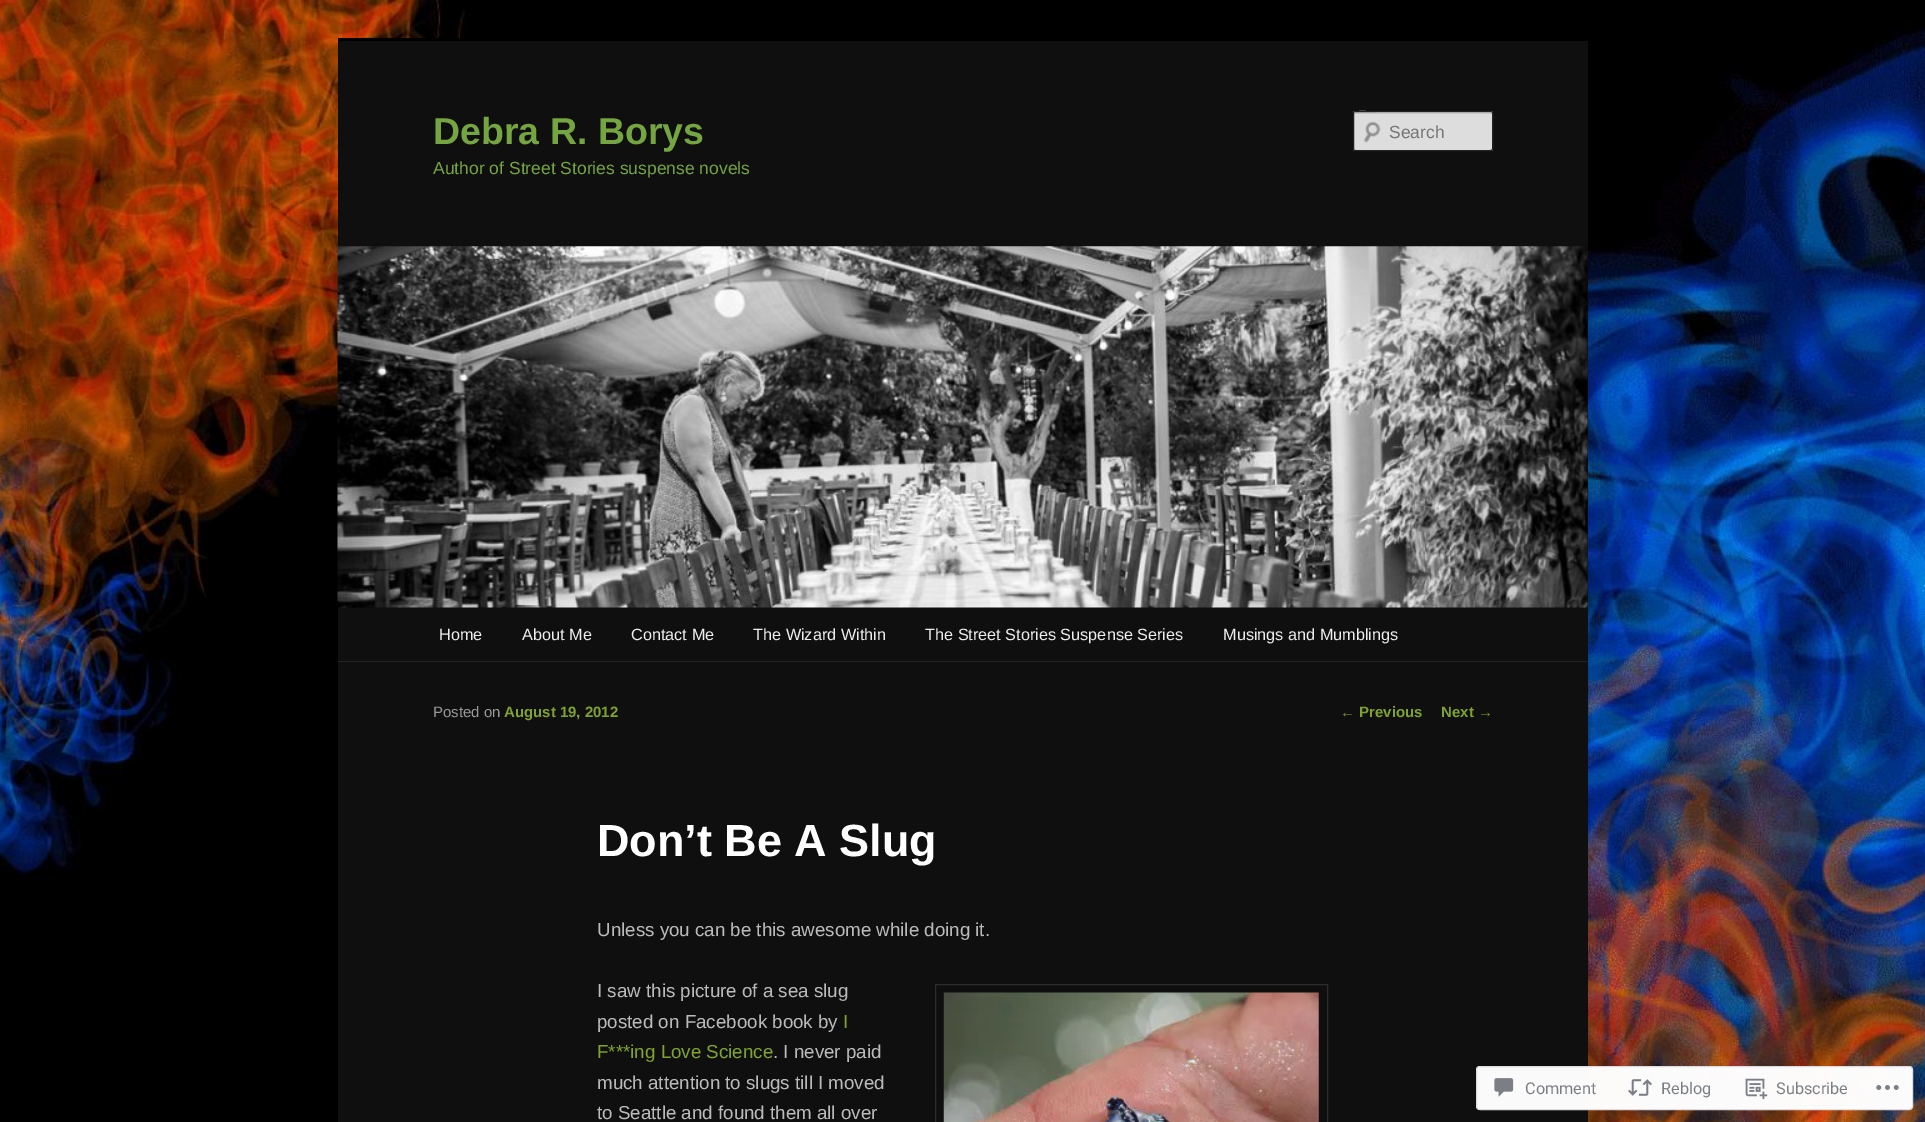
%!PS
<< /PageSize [1925 1122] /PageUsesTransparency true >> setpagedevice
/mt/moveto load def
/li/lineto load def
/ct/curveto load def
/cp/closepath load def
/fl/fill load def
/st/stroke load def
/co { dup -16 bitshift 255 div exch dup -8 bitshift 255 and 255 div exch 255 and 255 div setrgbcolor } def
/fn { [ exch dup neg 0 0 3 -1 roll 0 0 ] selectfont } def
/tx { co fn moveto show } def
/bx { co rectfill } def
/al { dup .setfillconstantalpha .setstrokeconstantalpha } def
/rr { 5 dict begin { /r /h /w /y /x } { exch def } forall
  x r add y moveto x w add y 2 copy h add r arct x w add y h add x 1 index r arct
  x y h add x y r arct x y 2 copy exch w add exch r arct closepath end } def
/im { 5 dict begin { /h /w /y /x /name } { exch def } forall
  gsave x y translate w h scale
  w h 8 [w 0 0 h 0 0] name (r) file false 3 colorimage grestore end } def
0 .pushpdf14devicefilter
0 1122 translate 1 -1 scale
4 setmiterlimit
0 0 1925 1122 16#FFFFFF bx
(media/1.raw) 0 0 1925 1122 im
338 41 1250 1081 16#0F0F0F bx
338 38 125 3 16#000000 bx
16#DDDDDD co
1353 111 140 40 2.5 rr fl
(media/2.raw) 1363 121 18 22 im
16#C7C7C7 co
1355 114 mt 1490 114 li 1491 114 1491 114 1491 115 ct 1491 113 li 1378 113 li 1377 113 1354 107 1354 115 ct 1354 114 1354 114 1355 114 ct cp fl
16#222222 co
1353.5 111.5 139 39 2 rr st
(media/3.raw) 337 246 1251 362 im
338 661 1250 1 16#222222 bx
16#2C2C2C co
935.5 984.5 392 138 rectstroke
(media/4.raw) 943 992 376 130 im
0.98 al
16#FFFFFF co
1476 1066 437 44 4 rr fl
16#DCDCDE co
1476.5 1066.5 436 43 3.5 rr st
1 al
(media/5.raw) 1494 1078 20 19 im
(media/6.raw) 1628 1079 24 17 im
(media/7.raw) 1745 1078 23 22 im
(media/8.raw) 1876 1085 23 5 im
(Debra R. Borys) 433 144 /LiberationSans-Bold 37.5 16#74A540 tx
(Author of Street Stories suspense novels) 433 174 /LiberationSans-Regular 17.5 16#74A540 tx
(Search) 1389 138 /LiberationSans-Regular 17.5 16#757575 tx
(Home) 439 640 /LiberationSans-Regular 16.25 16#EEEEEE tx
(About Me) 522 640 /LiberationSans-Regular 16.25 16#EEEEEE tx
(Contact Me) 631 640 /LiberationSans-Regular 16.25 16#EEEEEE tx
(The Wizard Within) 753 640 /LiberationSans-Regular 16.25 16#EEEEEE tx
(The Street Stories Suspense Series) 925 640 /LiberationSans-Regular 16.25 16#EEEEEE tx
(Musings and Mumblings) 1223 640 /LiberationSans-Regular 16.25 16#EEEEEE tx
(Posted on) 433 717 /LiberationSans-Regular 15 16#999999 tx
(August 19, 2012) 504 717 /LiberationSans-Bold 15 16#80A32F tx
(Don’t Be A Slug) 597 856 /LiberationSans-Bold 45 16#FFFFFF tx
(Unless you can be this awesome while doing it.) 597 936 /LiberationSans-Regular 18.75 16#BBBBBB tx
(I saw this picture of a sea slug) 597 997 /LiberationSans-Regular 18.75 16#BBBBBB tx
(posted on Facebook book by) 597 1028 /LiberationSans-Regular 18.75 16#BBBBBB tx
(I) 843 1028 /LiberationSans-Regular 18.75 16#80A32F tx
(F***ing Love Science) 597 1058 /LiberationSans-Regular 18.75 16#80A32F tx
(. I never paid) 773 1058 /LiberationSans-Regular 18.75 16#BBBBBB tx
(much attention to slugs till I moved) 597 1089 /LiberationSans-Regular 18.75 16#BBBBBB tx
(to Seattle and found them all over) 597 1119 /LiberationSans-Regular 18.75 16#BBBBBB tx
(←) 1340 717 /LiberationSans-Regular 15 16#80A32F tx
(Previous) 1359 717 /LiberationSans-Bold 15 16#80A32F tx
(Next) 1441 717 /LiberationSans-Bold 15 16#80A32F tx
(→) 1478 717 /LiberationSans-Regular 15 16#80A32F tx
(Comment) 1525 1094 /Roboto-Regular 16.25 16#7B7F84 tx
(Reblog) 1661 1094 /Roboto-Regular 16.25 16#7B7F84 tx
(Subscribe) 1776 1094 /Roboto-Regular 16.25 16#7B7F84 tx
.poppdf14devicefilter showpage
